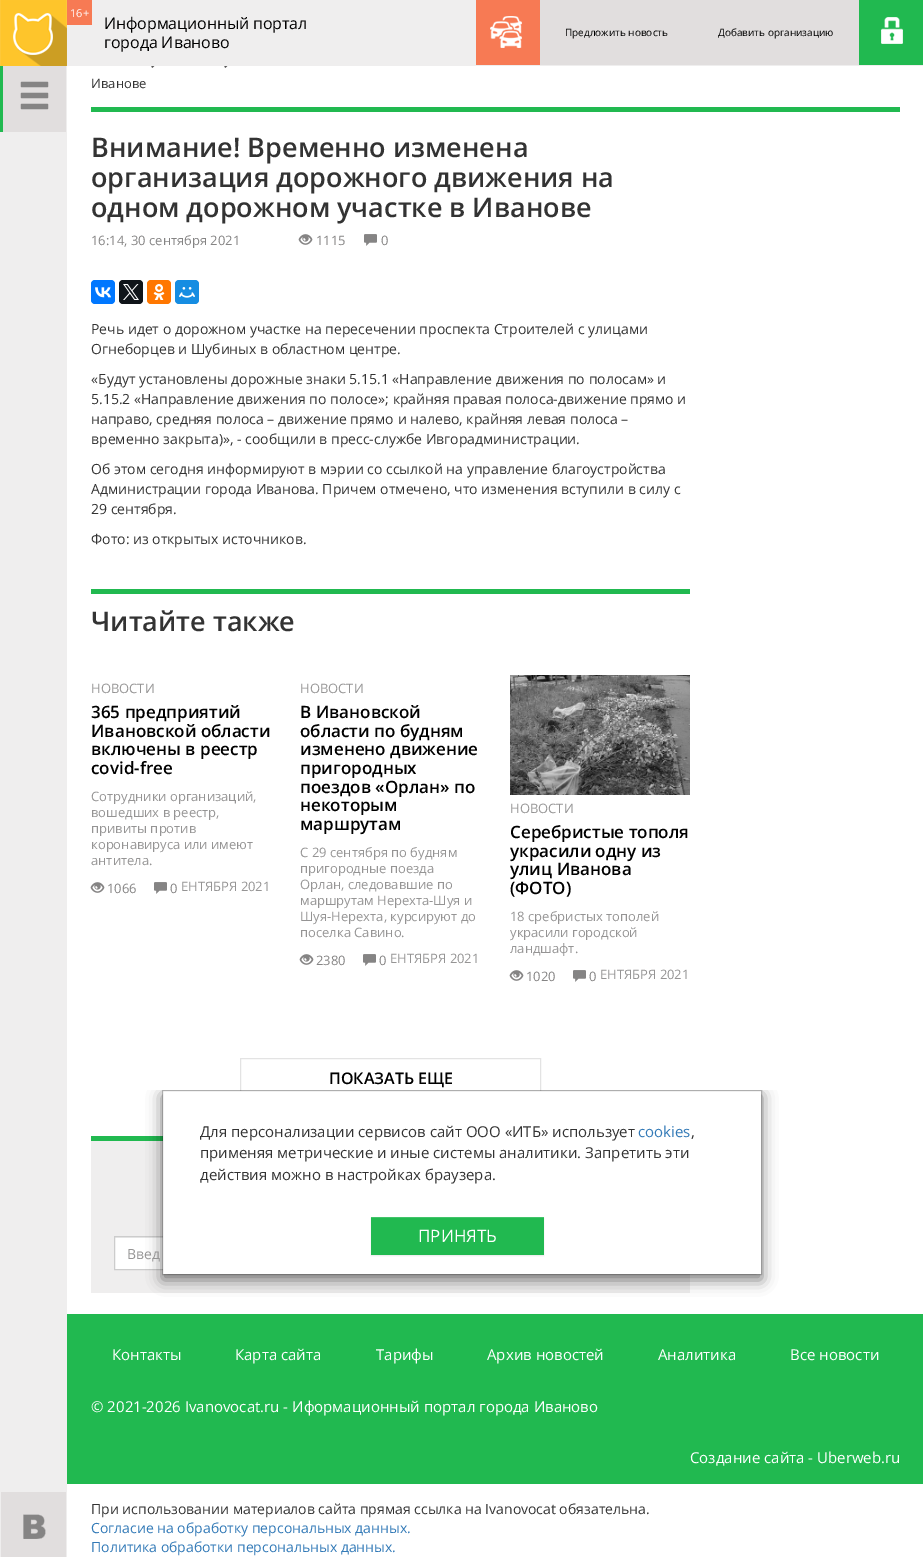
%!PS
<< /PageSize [923 1557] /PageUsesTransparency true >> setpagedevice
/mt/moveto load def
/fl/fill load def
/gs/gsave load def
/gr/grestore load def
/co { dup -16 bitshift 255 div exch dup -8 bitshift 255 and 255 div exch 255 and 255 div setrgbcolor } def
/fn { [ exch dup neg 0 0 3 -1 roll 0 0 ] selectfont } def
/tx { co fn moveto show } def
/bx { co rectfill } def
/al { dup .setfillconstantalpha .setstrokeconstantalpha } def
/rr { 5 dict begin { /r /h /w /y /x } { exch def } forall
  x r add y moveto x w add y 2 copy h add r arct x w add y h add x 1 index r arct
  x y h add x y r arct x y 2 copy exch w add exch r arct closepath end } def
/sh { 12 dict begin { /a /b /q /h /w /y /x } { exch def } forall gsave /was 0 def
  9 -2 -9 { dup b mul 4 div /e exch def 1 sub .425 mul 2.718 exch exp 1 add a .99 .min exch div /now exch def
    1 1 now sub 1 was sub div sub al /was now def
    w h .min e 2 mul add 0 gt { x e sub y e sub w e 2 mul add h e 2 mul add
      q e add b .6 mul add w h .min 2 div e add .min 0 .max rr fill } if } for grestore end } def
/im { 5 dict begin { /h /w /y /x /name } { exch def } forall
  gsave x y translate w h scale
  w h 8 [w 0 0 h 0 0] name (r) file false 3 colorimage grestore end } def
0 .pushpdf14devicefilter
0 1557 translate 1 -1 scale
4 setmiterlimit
0 0 923 1557 16#FFFFFF bx
67 0 856 66 16#EFEEEE bx
(media/1.raw) 0 0 67 66 im
67 0 25 25 16#F77A54 bx
476 0 64 65 16#F77A54 bx
(media/2.raw) 490 16 32 32 im
540 0 319 65 16#E1DEDE bx
859 0 64 65 16#21B950 bx
(media/3.raw) 881 17 22 27 im
0 66 67 1491 16#EFEEEE bx
3 66 63 66 16#E1DEDE bx
0 66 3 66 16#21B950 bx
(media/4.raw) 20 81 29 29 im
1 1492 65 65 16#E1DEDE bx
(media/5.raw) 23 1514 23 25 im
(media/6.raw) 151 66 4 2 im
(media/6.raw) 224 66 4 2 im
91 107 809 5 16#21B950 bx
(media/7.raw) 298 234 15 11 im
(media/8.raw) 364 234 13 12 im
16#0077FF co
91 280 24 24 4 rr fl
(media/9.raw) 95 287 16 11 im
16#0F1419 co
119 280 24 24 4 rr fl
(media/10.raw) 123 284 16 16 im
16#FF7700 co
147 280 24 24 4 rr fl
(media/11.raw) 153 284 12 16 im
16#168DE2 co
175 280 24 24 4 rr fl
(media/12.raw) 179 287 16 11 im
91 589 599 5 16#21B950 bx
(media/7.raw) 90 882 15 11 im
(media/8.raw) 154 882 13 12 im
(media/7.raw) 299 954 15 11 im
(media/8.raw) 363 954 13 12 im
(media/13.raw) 510 675 180 120 im
(media/7.raw) 509 970 15 11 im
(media/8.raw) 573 970 13 12 im
16#E3E3E3 co
240.5 1058.5 300 40 rectstroke
91 1136 72 5 16#21B950 bx
91 1141 599 152 16#EFEEEE bx
115 1238 48 31 16#FFFFFF bx
115 1237 48 1 16#ECECEC bx
16#CCCCCC co
114.5 1236.5 276 33 rectstroke
67 1314 856 170 16#21B950 bx
gs
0 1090 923 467 rectclip
16#000000 co
162 1095 600 185 0 7.5 .5 sh
gr
163 1091 598 183 16#FFFFFF bx
0.2 al
16#000000 co
162.5 1090.5 599 184 rectstroke
1 al
371 1218 173 38 0 .5 .07 sh
371 1218 173 37 16#21B950 bx
371 1217 173 1 16#42C46A bx
(16+) 70 17 /OpenSans-Regular 11 16#FFFFFF tx
/OpenSans-Regular 16 fn
16#000000 co
104 29 mt -.1 0 (Информационный портал) ashow
104 48 mt -.1 0 (города Иваново) ashow
(Предложить новость) 565 36 /OpenSans-Regular 10 16#000000 tx
(Добавить организацию) 718 36 /OpenSans-Regular 10 16#000000 tx
(Иванове) 91 88 /OpenSans-Regular 13 16#333333 tx
(Внимание! Временно изменена) 91 157 /OpenSans-SemiBold 27 16#333333 tx
(организация дорожного движения на) 91 187 /OpenSans-SemiBold 27 16#333333 tx
(одном дорожном участке в Иванове) 91 217 /OpenSans-SemiBold 27 16#333333 tx
(16:14, 30 сентября 2021) 91 245 /OpenSans-Regular 13 16#858484 tx
(1115) 316 245 /OpenSans-Regular 13 16#858484 tx
(0) 381 245 /OpenSans-Regular 13 16#858484 tx
(Речь идет о дорожном участке на пересечении проспекта Строителей с улицами) 91 334 /OpenSans-Regular 14 16#333333 tx
(Огнеборцев и Шубиных в областном центре.) 91 354 /OpenSans-Regular 14 16#333333 tx
(«Будут установлены дорожные знаки 5.15.1 «Направление движения по полосам» и) 91 384 /OpenSans-Regular 14 16#333333 tx
(5.15.2 «Направление движения по полосе»; крайняя правая полоса-движение прямо и) 91 404 /OpenSans-Regular 14 16#333333 tx
(направо, средняя полоса – движение прямо и налево, крайняя левая полоса –) 91 424 /OpenSans-Regular 14 16#333333 tx
(временно закрыта\)», - сообщили в пресс-службе Ивгорадминистрации.) 91 444 /OpenSans-Regular 14 16#333333 tx
(Об этом сегодня информируют в мэрии со ссылкой на управление благоустройства) 91 474 /OpenSans-Regular 14 16#333333 tx
(Администрации города Иванова. Причем отмечено, что изменения вступили в силу с) 91 494 /OpenSans-Regular 14 16#333333 tx
(29 сентября.) 91 514 /OpenSans-Regular 14 16#333333 tx
(Фото: из открытых источников.) 91 544 /OpenSans-Regular 14 16#333333 tx
(Читайте также) 91 631 /OpenSans-SemiBold 27 16#333333 tx
(НОВОСТИ) 91 693 /OpenSans-Regular 13 16#959494 tx
(365 предприятий) 91 718 /OpenSans-SemiBold 17 16#000000 tx
(Ивановской области) 91 737 /OpenSans-SemiBold 17 16#000000 tx
(включены в реестр) 91 755 /OpenSans-SemiBold 17 16#000000 tx
(covid-free) 91 774 /OpenSans-SemiBold 17 16#000000 tx
(Сотрудники организаций,) 91 801 /OpenSans-Regular 13 16#959494 tx
(вошедших в реестр,) 91 817 /OpenSans-Regular 13 16#959494 tx
(привиты против) 91 833 /OpenSans-Regular 13 16#959494 tx
(коронавируса или имеют) 91 849 /OpenSans-Regular 13 16#959494 tx
(антитела.) 91 865 /OpenSans-Regular 13 16#959494 tx
(1066) 107 893 /OpenSans-Regular 13 16#858484 tx
(0) 170 893 /OpenSans-Regular 13 16#858484 tx
(ЕНТЯБРЯ 2021) 181 891 /OpenSans-Regular 13 16#959494 tx
(НОВОСТИ) 300 693 /OpenSans-Regular 13 16#959494 tx
(В Ивановской) 300 718 /OpenSans-SemiBold 17 16#000000 tx
(области по будням) 300 737 /OpenSans-SemiBold 17 16#000000 tx
(изменено движение) 300 755 /OpenSans-SemiBold 17 16#000000 tx
(пригородных) 300 774 /OpenSans-SemiBold 17 16#000000 tx
(поездов «Орлан» по) 300 793 /OpenSans-SemiBold 17 16#000000 tx
(некоторым) 300 811 /OpenSans-SemiBold 17 16#000000 tx
(маршрутам) 300 830 /OpenSans-SemiBold 17 16#000000 tx
(С 29 сентября по будням) 300 857 /OpenSans-Regular 13 16#959494 tx
(пригородные поезда) 300 873 /OpenSans-Regular 13 16#959494 tx
(Орлан, следовавшие по) 300 889 /OpenSans-Regular 13 16#959494 tx
(маршрутам Нерехта-Шуя и) 300 905 /OpenSans-Regular 13 16#959494 tx
(Шуя-Нерехта, курсируют до) 300 921 /OpenSans-Regular 13 16#959494 tx
(поселка Савино.) 300 937 /OpenSans-Regular 13 16#959494 tx
(2380) 316 965 /OpenSans-Regular 13 16#858484 tx
(0) 379 965 /OpenSans-Regular 13 16#858484 tx
(ЕНТЯБРЯ 2021) 390 963 /OpenSans-Regular 13 16#959494 tx
(НОВОСТИ) 510 813 /OpenSans-Regular 13 16#959494 tx
(Серебристые тополя) 510 838 /OpenSans-SemiBold 17 16#000000 tx
(украсили одну из) 510 857 /OpenSans-SemiBold 17 16#000000 tx
(улиц Иванова) 510 875 /OpenSans-SemiBold 17 16#000000 tx
(\(ФОТО\)) 510 894 /OpenSans-SemiBold 17 16#000000 tx
(18 сребристых тополей) 510 921 /OpenSans-Regular 13 16#959494 tx
(украсили городской) 510 937 /OpenSans-Regular 13 16#959494 tx
(ландшафт.) 510 953 /OpenSans-Regular 13 16#959494 tx
(1020) 526 981 /OpenSans-Regular 13 16#858484 tx
(0) 589 981 /OpenSans-Regular 13 16#858484 tx
(ЕНТЯБРЯ 2021) 600 979 /OpenSans-Regular 13 16#959494 tx
(ПОКАЗАТЬ ЕЩЕ) 329 1084 /OpenSans-SemiBold 16 16#000000 tx
(Введ) 127 1259 /OpenSans-Regular 14 16#959494 tx
(Контакты) 112 1360 /OpenSans-Regular 15 16#FFFFFF tx
(Карта сайта) 235 1360 /OpenSans-Regular 15 16#FFFFFF tx
(Тарифы) 376 1360 /OpenSans-Regular 15 16#FFFFFF tx
(Архив новостей) 487 1360 /OpenSans-Regular 15 16#FFFFFF tx
(Аналитика) 658 1360 /OpenSans-Regular 15 16#FFFFFF tx
(Все новости) 790 1360 /OpenSans-Regular 15 16#FFFFFF tx
(© 2021-2026 Ivanovocat.ru - Иформационный портал города Иваново) 91 1412 /OpenSans-Regular 15 16#FFFFFF tx
(Создание сайта - Uberweb.ru) 690 1463 /OpenSans-Regular 15 16#FFFFFF tx
(При использовании материалов сайта прямая ссылка на Ivanovocat обязательна.) 91 1514 /OpenSans-Regular 14 16#333333 tx
(Согласие на обработку персональных данных.) 91 1533 /OpenSans-Regular 14 16#337AB7 tx
(Политика обработки персональных данных.) 91 1552 /OpenSans-Regular 14 16#337AB7 tx
(Для персонализации сервисов сайт ООО «ИТБ» использует) 200 1137 /OpenSans-Regular 15 16#333333 tx
(cookies) 638 1137 /OpenSans-Regular 15 16#337AB7 tx
(,) 691 1137 /OpenSans-Regular 15 16#333333 tx
(применяя метрические и иные системы аналитики. Запретить эти) 200 1158 /OpenSans-Regular 15 16#333333 tx
(действия можно в настройках браузера.) 200 1180 /OpenSans-Regular 15 16#333333 tx
(ПРИНЯТЬ) 418 1242 /OpenSans-Regular 17 16#FFFFFF tx
.poppdf14devicefilter showpage
